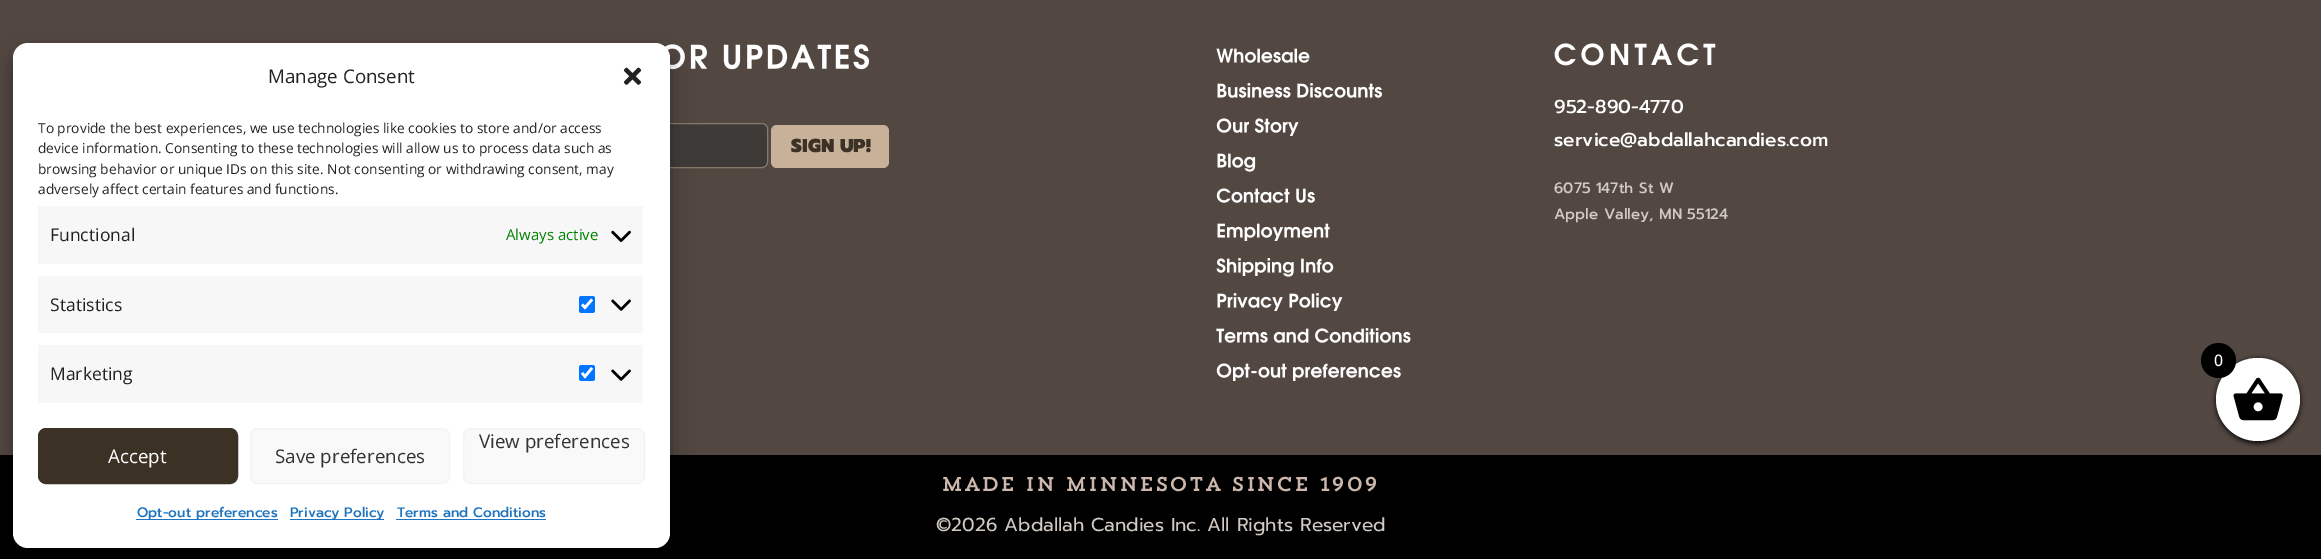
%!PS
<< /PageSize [2321 559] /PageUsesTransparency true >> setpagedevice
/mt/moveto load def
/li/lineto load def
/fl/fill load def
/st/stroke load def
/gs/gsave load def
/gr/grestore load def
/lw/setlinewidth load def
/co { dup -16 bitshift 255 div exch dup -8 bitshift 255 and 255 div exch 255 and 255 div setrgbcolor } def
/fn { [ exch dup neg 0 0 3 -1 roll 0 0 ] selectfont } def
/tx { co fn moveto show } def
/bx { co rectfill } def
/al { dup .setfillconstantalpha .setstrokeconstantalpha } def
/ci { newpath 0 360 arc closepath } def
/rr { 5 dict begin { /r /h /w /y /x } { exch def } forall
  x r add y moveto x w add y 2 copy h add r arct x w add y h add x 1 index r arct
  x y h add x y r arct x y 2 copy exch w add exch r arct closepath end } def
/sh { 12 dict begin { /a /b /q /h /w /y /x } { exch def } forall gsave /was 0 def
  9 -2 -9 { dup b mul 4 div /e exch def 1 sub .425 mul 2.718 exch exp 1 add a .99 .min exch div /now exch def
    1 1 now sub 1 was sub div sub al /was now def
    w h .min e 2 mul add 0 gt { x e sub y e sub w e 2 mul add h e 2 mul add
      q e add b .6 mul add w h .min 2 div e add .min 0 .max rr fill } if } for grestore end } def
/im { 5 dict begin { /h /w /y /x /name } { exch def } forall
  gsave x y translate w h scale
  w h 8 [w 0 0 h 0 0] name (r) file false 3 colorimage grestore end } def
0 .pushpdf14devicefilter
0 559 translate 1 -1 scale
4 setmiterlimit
0 0 2321 559 16#534741 bx
(media/4.raw) 664 44 205 26 im
16#3E3A38 co
486.5 123.5 281 44 5.5 rr gs fl gr
16#867A6C co
st
0 455 2321 104 16#000000 bx
13 50 657 505 15 4 .23 sh
13 55 657 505 15 12.5 .19 sh
16#FFFFFF co
13 43 657 505 15 rr fl
(media/1.raw) 623 67 19 18 im
38 206 605 58 16#F7F7F7 bx
(media/2.raw) 611 230 20 12 im
38 276 605 57 16#F7F7F7 bx
16#0075FF co
579 296 16 17 2.5 rr fl
16#FFFFFF co
2.6 lw
582 304.5 mt 585 307.5 li 592 299.5 li st
(media/3.raw) 611 299 20 12 im
38 345 605 58 16#F7F7F7 bx
16#0075FF co
579 365 16 16 2.5 rr fl
16#FFFFFF co
582 373 mt 585 376.5 li 592 368 li st
(media/3.raw) 611 369 20 12 im
16#F9F9F9 co
463.5 428.5 181 55 7.5 rr gs fl gr
16#F2F2F2 co
1 lw
st
16#3C3125 co
38.5 428.5 199 55 7.5 rr gs fl gr
st
16#F9F9F9 co
250.5 428.5 199 55 7.5 rr gs fl gr
16#F2F2F2 co
st
136 519 142 1 16#1E73BE bx
290 519 94 1 16#1E73BE bx
396 519 150 1 16#1E73BE bx
16#C7B299 co
771 125 118 43 6 rr fl
(media/5.raw) 1216 48 94 15 im
(media/6.raw) 1217 83 165 15 im
(media/7.raw) 1216 118 83 18 im
(media/8.raw) 1217 153 39 19 im
(media/9.raw) 1216 188 99 15 im
(media/10.raw) 1217 223 113 18 im
(media/11.raw) 1216 258 118 19 im
(media/12.raw) 1217 293 126 18 im
(media/13.raw) 1216 328 195 15 im
(media/14.raw) 1216 363 185 18 im
(media/15.raw) 1554 43 162 23 im
16#000000 co
2216 359 84 84 42 2.5 1 sh
16#FFFFFF co
2216 358 84 83 41.5 rr fl
16#000000 co
2218.5 360.5 17.5 ci fl
(media/16.raw) 2233 377 50 44 im
(Manage Consent) 268 83 /OpenSans-Regular 18.75 16#222222 tx
(To provide the best experiences, we use technologies like cookies to store and/or access) 38 133 /OpenSans-Regular 13.75 16#222222 tx
(device information. Consenting to these technologies will allow us to process data such as) 38 153 /OpenSans-Regular 13.75 16#222222 tx
(browsing behavior or unique IDs on this site. Not consenting or withdrawing consent, may) 38 174 /OpenSans-Regular 13.75 16#222222 tx
(adversely affect certain features and functions.) 38 194 /OpenSans-Regular 13.75 16#222222 tx
(Functional) 50 241 /OpenSans-Regular 17.5 16#222222 tx
(Always active) 506 240 /OpenSans-Regular 15 16#008000 tx
(Statistics) 50 311 /OpenSans-Regular 17.5 16#222222 tx
(Marketing) 50 380 /OpenSans-Regular 17.5 16#222222 tx
(View preferences) 479 448 /OpenSans-Regular 18.75 16#333333 tx
(Accept) 108 463 /OpenSans-Regular 18.75 16#FFFFFF tx
(Save preferences) 275 463 /OpenSans-Regular 18.75 16#333333 tx
(Opt-out preferences) 137 517 /Prompt-Medium 13.75 16#1E73BE tx
(Privacy Policy) 290 517 /Prompt-Medium 13.75 16#1E73BE tx
(Terms and Conditions) 397 517 /Prompt-Medium 13.75 16#1E73BE tx
(SIGN UP!) 791 152 /Prompt-Black 18.75 16#3C3125 tx
(952-890-4770) 1554 113 /Prompt-Medium 18.75 16#FFFFFF tx
(service@abdallahcandies.com) 1554 146 /Prompt-Medium 18.75 16#FFFFFF tx
(6075 147th St W) 1554 193 /Prompt-Medium 15 16#D0CAC3 tx
(Apple Valley, MN 55124) 1554 219 /Prompt-Medium 15 16#D0CAC3 tx
/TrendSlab-ExtraLight 20 fn
16#CCB7AC co
941 491 mt .6 0 (Made in minnesota since 1909) ashow
(©2026 Abdallah Candies Inc. All Rights Reserved) 936 531 /Prompt-Regular 18.75 16#D0CAC3 tx
(0) 2214 366 /OpenSans-Medium 16 16#FFFFFF tx
.poppdf14devicefilter showpage
